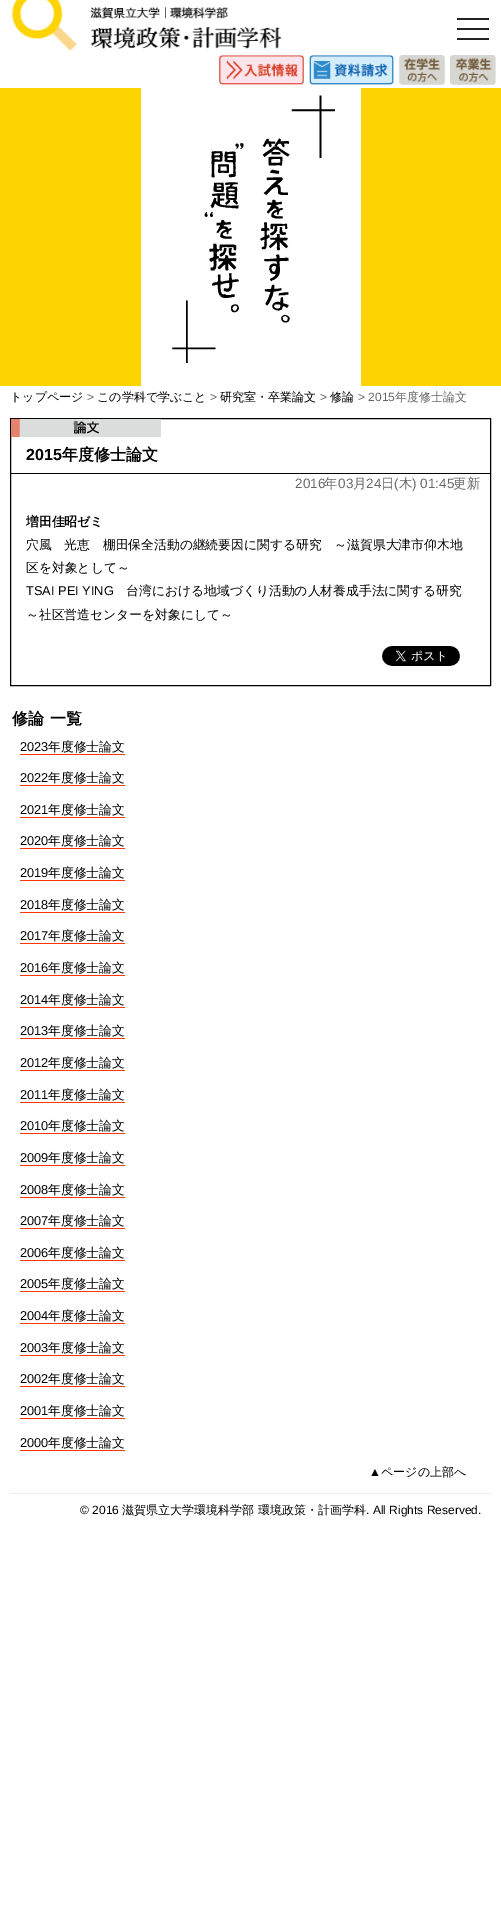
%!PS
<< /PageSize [501 1915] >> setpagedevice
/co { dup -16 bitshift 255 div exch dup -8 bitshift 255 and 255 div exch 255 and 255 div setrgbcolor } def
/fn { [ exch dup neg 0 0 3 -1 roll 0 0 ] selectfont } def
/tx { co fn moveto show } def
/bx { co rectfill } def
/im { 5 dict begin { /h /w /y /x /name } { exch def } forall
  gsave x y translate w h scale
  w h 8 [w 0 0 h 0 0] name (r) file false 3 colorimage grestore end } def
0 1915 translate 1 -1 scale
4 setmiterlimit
0 0 501 1915 16#FFFFFF bx
(media/1.raw) 11 0 66 51 im
(media/2.raw) 90 7 76 12 im
(media/3.raw) 169 7 60 12 im
(media/4.raw) 90 27 192 22 im
0 88 501 298 16#FDD300 bx
457 28 32 2 16#222222 bx
457 18 32 2 16#222222 bx
457 38 32 2 16#222222 bx
(media/5.raw) 141 88 220 298 im
(media/6.raw) 219 55 85 30 im
(media/7.raw) 309 55 85 30 im
(media/8.raw) 399 55 46 30 im
(media/9.raw) 450 55 46 30 im
16#000000 co
10.5 418.5 480 267 rectstroke
(media/10.raw) 11 419 150 18 im
11 473 479 1 16#000000 bx
(media/11.raw) 382 646 78 20 im
20 754 105 1 16#FF3706 bx
20 785 105 1 16#FF3706 bx
20 817 105 1 16#FF3706 bx
20 848 105 1 16#FF3706 bx
20 880 105 1 16#FF3706 bx
20 912 105 1 16#FF3706 bx
20 943 105 1 16#FF3706 bx
20 975 105 1 16#FF3706 bx
20 1007 105 1 16#FF3706 bx
20 1038 105 1 16#FF3706 bx
20 1070 105 1 16#FF3706 bx
20 1102 105 1 16#FF3706 bx
20 1133 105 1 16#FF3706 bx
20 1165 105 1 16#FF3706 bx
20 1197 105 1 16#FF3706 bx
20 1228 105 1 16#FF3706 bx
20 1260 105 1 16#FF3706 bx
20 1291 105 1 16#FF3706 bx
20 1323 105 1 16#FF3706 bx
20 1355 105 1 16#FF3706 bx
20 1386 105 1 16#FF3706 bx
20 1418 105 1 16#FF3706 bx
20 1450 105 1 16#FF3706 bx
10 1493 481 1 16#EEEEEE bx
(トップページ) 10 401 /WenQuanYiZenHei-Medium 12 16#000000 tx
(>) 87 401 /LiberationSans-Regular 12 16#666666 tx
(この学科で学ぶこと) 97 401 /WenQuanYiZenHei-Medium 12 16#000000 tx
(>) 210 401 /LiberationSans-Regular 12 16#666666 tx
(研究室・卒業論文) 220 401 /WenQuanYiZenHei-Medium 12 16#000000 tx
(>) 320 401 /LiberationSans-Regular 12 16#666666 tx
(修論) 330 401 /WenQuanYiZenHei-Medium 12 16#000000 tx
(> 2015) 358 401 /LiberationSans-Regular 12 16#666666 tx
(年度修士論文) 395 401 /WenQuanYiZenHei-Medium 12 16#666666 tx
(2015) 26 460 /LiberationSans-Bold 16 16#000000 tx
(年度修士論文) 62 460 /WenQuanYiZenHei-Bold 16 16#000000 tx
(2016) 295 488 /LiberationSans-Regular 13.5 16#666666 tx
(年) 324 488 /WenQuanYiZenHei-Medium 13.5 16#666666 tx
(03) 338 488 /LiberationSans-Regular 13.5 16#666666 tx
(月) 353 488 /WenQuanYiZenHei-Medium 13.5 16#666666 tx
(24) 366 488 /LiberationSans-Regular 13.5 16#666666 tx
(日) 381 488 /WenQuanYiZenHei-Medium 13.5 16#666666 tx
(\() 394 488 /LiberationSans-Regular 13.5 16#666666 tx
(木) 399 488 /WenQuanYiZenHei-Medium 13.5 16#666666 tx
(\) 01:45) 412 488 /LiberationSans-Regular 13.5 16#666666 tx
(更新) 453 488 /WenQuanYiZenHei-Medium 13.5 16#666666 tx
(増田佳昭ゼミ) 26 526 /WenQuanYiZenHei-Bold 12.8 16#000000 tx
(穴風　光恵　棚田保全活動の継続要因に関する研究　～滋賀県大津市仰木地) 26 549 /WenQuanYiZenHei-Medium 12.8 16#000000 tx
(区を対象として～) 26 572 /WenQuanYiZenHei-Medium 12.8 16#000000 tx
(TSAI PEI YING) 26 595 /LiberationSans-Regular 12.8 16#000000 tx
(台湾における地域づくり活動の人材養成手法に関する研究) 126 595 /WenQuanYiZenHei-Medium 12.8 16#000000 tx
(～社区営造センターを対象にして～) 26 619 /WenQuanYiZenHei-Medium 12.8 16#000000 tx
(修論) 12 724 /WenQuanYiZenHei-Bold 16 16#000000 tx
(一覧) 50 724 /WenQuanYiZenHei-Bold 16 16#000000 tx
(2023) 20 751 /LiberationSans-Regular 12.8 16#000000 tx
(年度修士論文) 48 751 /WenQuanYiZenHei-Medium 12.8 16#000000 tx
(2022) 20 782 /LiberationSans-Regular 12.8 16#000000 tx
(年度修士論文) 48 782 /WenQuanYiZenHei-Medium 12.8 16#000000 tx
(2021) 20 814 /LiberationSans-Regular 12.8 16#000000 tx
(年度修士論文) 48 814 /WenQuanYiZenHei-Medium 12.8 16#000000 tx
(2020) 20 845 /LiberationSans-Regular 12.8 16#000000 tx
(年度修士論文) 48 845 /WenQuanYiZenHei-Medium 12.8 16#000000 tx
(2019) 20 877 /LiberationSans-Regular 12.8 16#000000 tx
(年度修士論文) 48 877 /WenQuanYiZenHei-Medium 12.8 16#000000 tx
(2018) 20 909 /LiberationSans-Regular 12.8 16#000000 tx
(年度修士論文) 48 909 /WenQuanYiZenHei-Medium 12.8 16#000000 tx
(2017) 20 940 /LiberationSans-Regular 12.8 16#000000 tx
(年度修士論文) 48 940 /WenQuanYiZenHei-Medium 12.8 16#000000 tx
(2016) 20 972 /LiberationSans-Regular 12.8 16#000000 tx
(年度修士論文) 48 972 /WenQuanYiZenHei-Medium 12.8 16#000000 tx
(2014) 20 1004 /LiberationSans-Regular 12.8 16#000000 tx
(年度修士論文) 48 1004 /WenQuanYiZenHei-Medium 12.8 16#000000 tx
(2013) 20 1035 /LiberationSans-Regular 12.8 16#000000 tx
(年度修士論文) 48 1035 /WenQuanYiZenHei-Medium 12.8 16#000000 tx
(2012) 20 1067 /LiberationSans-Regular 12.8 16#000000 tx
(年度修士論文) 48 1067 /WenQuanYiZenHei-Medium 12.8 16#000000 tx
(2011) 20 1099 /LiberationSans-Regular 12.8 16#000000 tx
(年度修士論文) 48 1099 /WenQuanYiZenHei-Medium 12.8 16#000000 tx
(2010) 20 1130 /LiberationSans-Regular 12.8 16#000000 tx
(年度修士論文) 48 1130 /WenQuanYiZenHei-Medium 12.8 16#000000 tx
(2009) 20 1162 /LiberationSans-Regular 12.8 16#000000 tx
(年度修士論文) 48 1162 /WenQuanYiZenHei-Medium 12.8 16#000000 tx
(2008) 20 1194 /LiberationSans-Regular 12.8 16#000000 tx
(年度修士論文) 48 1194 /WenQuanYiZenHei-Medium 12.8 16#000000 tx
(2007) 20 1225 /LiberationSans-Regular 12.8 16#000000 tx
(年度修士論文) 48 1225 /WenQuanYiZenHei-Medium 12.8 16#000000 tx
(2006) 20 1257 /LiberationSans-Regular 12.8 16#000000 tx
(年度修士論文) 48 1257 /WenQuanYiZenHei-Medium 12.8 16#000000 tx
(2005) 20 1288 /LiberationSans-Regular 12.8 16#000000 tx
(年度修士論文) 48 1288 /WenQuanYiZenHei-Medium 12.8 16#000000 tx
(2004) 20 1320 /LiberationSans-Regular 12.8 16#000000 tx
(年度修士論文) 48 1320 /WenQuanYiZenHei-Medium 12.8 16#000000 tx
(2003) 20 1352 /LiberationSans-Regular 12.8 16#000000 tx
(年度修士論文) 48 1352 /WenQuanYiZenHei-Medium 12.8 16#000000 tx
(2002) 20 1383 /LiberationSans-Regular 12.8 16#000000 tx
(年度修士論文) 48 1383 /WenQuanYiZenHei-Medium 12.8 16#000000 tx
(2001) 20 1415 /LiberationSans-Regular 12.8 16#000000 tx
(年度修士論文) 48 1415 /WenQuanYiZenHei-Medium 12.8 16#000000 tx
(2000) 20 1447 /LiberationSans-Regular 12.8 16#000000 tx
(年度修士論文) 48 1447 /WenQuanYiZenHei-Medium 12.8 16#000000 tx
(▲) 369 1476 /LiberationSans-Regular 12 16#000000 tx
(ページの上部へ) 381 1476 /WenQuanYiZenHei-Medium 12 16#000000 tx
(© 2016) 80 1514 /LiberationSans-Regular 12 16#000000 tx
(滋賀県立大学環境科学部 環境政策・計画学科) 122 1514 /WenQuanYiZenHei-Medium 12 16#000000 tx
(. All Rights Reserved.) 366 1514 /LiberationSans-Regular 12 16#000000 tx
showpage
